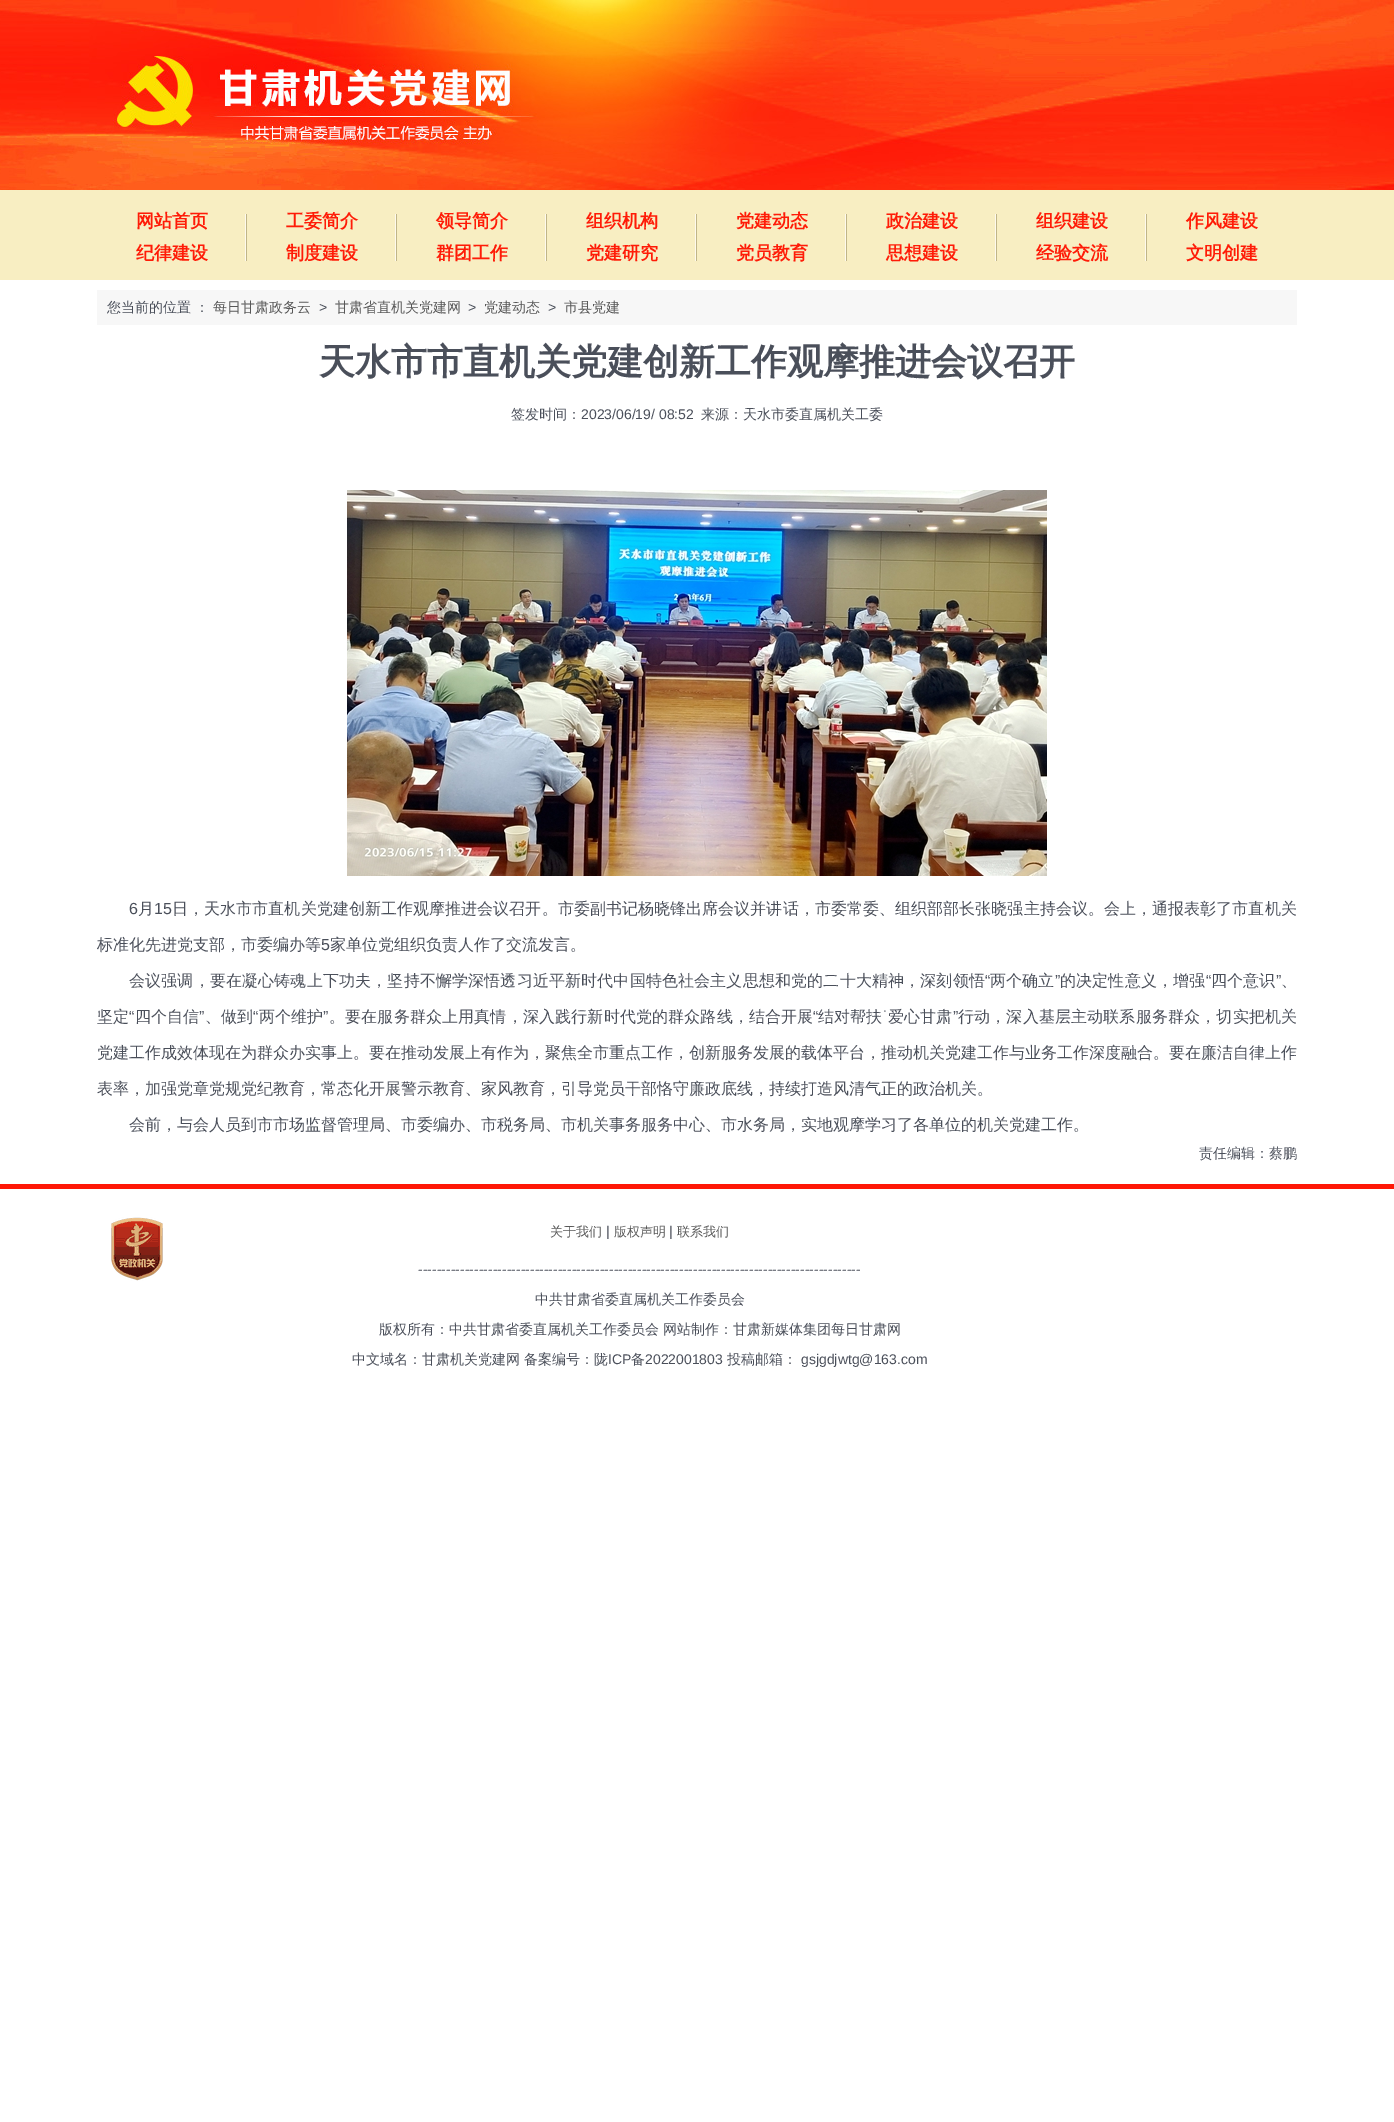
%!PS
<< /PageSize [1394 2122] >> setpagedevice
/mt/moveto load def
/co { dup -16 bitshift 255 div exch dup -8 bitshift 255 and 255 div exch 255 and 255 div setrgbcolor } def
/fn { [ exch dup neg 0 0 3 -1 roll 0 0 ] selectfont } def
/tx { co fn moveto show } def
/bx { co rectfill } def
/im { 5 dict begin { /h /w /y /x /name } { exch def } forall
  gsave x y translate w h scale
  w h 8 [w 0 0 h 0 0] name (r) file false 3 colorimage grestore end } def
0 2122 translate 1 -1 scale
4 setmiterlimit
0 0 1394 2122 16#FFFFFF bx
(media/1.raw) 0 0 1394 190 im
0 190 1394 90 16#F8EEC2 bx
(media/2.raw) 245 214 2 47 im
(media/2.raw) 395 214 2 47 im
(media/2.raw) 545 214 2 47 im
(media/2.raw) 695 214 2 47 im
(media/2.raw) 845 214 2 47 im
(media/2.raw) 995 214 2 47 im
(media/2.raw) 1145 214 2 47 im
97 290 1200 35 16#F7F7F7 bx
(media/3.raw) 347 490 700 386 im
0 1184 1394 5 16#FF1706 bx
(media/4.raw) 111 1217 52 64 im
(网站首页) 136 227 /WenQuanYiZenHei-Bold 18 16#FF1B07 tx
(纪律建设) 136 259 /WenQuanYiZenHei-Bold 18 16#FF1B07 tx
(工委简介) 286 227 /WenQuanYiZenHei-Bold 18 16#FF1B07 tx
(制度建设) 286 259 /WenQuanYiZenHei-Bold 18 16#FF1B07 tx
(领导简介) 436 227 /WenQuanYiZenHei-Bold 18 16#FF1B07 tx
(群团工作) 436 259 /WenQuanYiZenHei-Bold 18 16#FF1B07 tx
(组织机构) 586 227 /WenQuanYiZenHei-Bold 18 16#FF1B07 tx
(党建研究) 586 259 /WenQuanYiZenHei-Bold 18 16#FF1B07 tx
(党建动态) 736 227 /WenQuanYiZenHei-Bold 18 16#FF1B07 tx
(党员教育) 736 259 /WenQuanYiZenHei-Bold 18 16#FF1B07 tx
(政治建设) 886 227 /WenQuanYiZenHei-Bold 18 16#FF1B07 tx
(思想建设) 886 259 /WenQuanYiZenHei-Bold 18 16#FF1B07 tx
(组织建设) 1036 227 /WenQuanYiZenHei-Bold 18 16#FF1B07 tx
(经验交流) 1036 259 /WenQuanYiZenHei-Bold 18 16#FF1B07 tx
(作风建设) 1186 227 /WenQuanYiZenHei-Bold 18 16#FF1B07 tx
(文明创建) 1186 259 /WenQuanYiZenHei-Bold 18 16#FF1B07 tx
(您当前的位置 ：) 107 312 /WenQuanYiZenHei-Medium 14 16#4A4F5A tx
(每日甘肃政务云) 213 312 /WenQuanYiZenHei-Medium 14 16#585858 tx
(>) 319 312 /LiberationSans-Regular 14 16#4A4F5A tx
(甘肃省直机关党建网) 335 312 /WenQuanYiZenHei-Medium 14 16#585858 tx
(>) 468 312 /LiberationSans-Regular 14 16#4A4F5A tx
(党建动态) 484 312 /WenQuanYiZenHei-Medium 14 16#585858 tx
(>) 548 312 /LiberationSans-Regular 14 16#4A4F5A tx
(市县党建) 564 312 /WenQuanYiZenHei-Medium 14 16#585858 tx
(天水市市直机关党建创新工作观摩推进会议召开) 319 374 /WenQuanYiZenHei-Bold 36 16#4A4F5A tx
(签发时间：) 511 419 /WenQuanYiZenHei-Medium 14 16#4A4F5A tx
(2023/06/19/ 08:52) 581 419 /LiberationSans-Regular 14 16#4A4F5A tx
(来源：天水市委直属机关工委) 701 419 /WenQuanYiZenHei-Medium 14 16#4A4F5A tx
/LiberationSans-Regular 16 fn
129 914 mt .07 0 (6) ashow
/WenQuanYiZenHei-Medium 16 fn
138 914 mt .07 0 (月) ashow
/LiberationSans-Regular 16 fn
154 914 mt .07 0 (15) ashow
/WenQuanYiZenHei-Medium 16 fn
172 914 mt .07 0 (日，天水市市直机关党建创新工作观摩推进会议召开。市委副书记杨晓锋出席会议并讲话，市委常委、组织部部长张晓强主持会议。会上，通报表彰了市直机关) ashow
(标准化先进党支部，市委编办等) 97 950 /WenQuanYiZenHei-Medium 16 16#4A4F5A tx
(5) 321 950 /LiberationSans-Regular 16 16#4A4F5A tx
(家单位党组织负责人作了交流发言。) 330 950 /WenQuanYiZenHei-Medium 16 16#4A4F5A tx
129 986 mt .15 0 (会议强调，要在凝心铸魂上下功夫，坚持不懈学深悟透习近平新时代中国特色社会主义思想和党的二十大精神，深刻领悟) ashow
/LiberationSans-Regular 16 fn
985 986 mt .15 0 (“) ashow
/WenQuanYiZenHei-Medium 16 fn
990 986 mt .15 0 (两个确立) ashow
/LiberationSans-Regular 16 fn
1055 986 mt .15 0 (”) ashow
/WenQuanYiZenHei-Medium 16 fn
1060 986 mt .15 0 (的决定性意义，增强) ashow
/LiberationSans-Regular 16 fn
1206 986 mt .15 0 (“) ashow
/WenQuanYiZenHei-Medium 16 fn
1211 986 mt .15 0 (四个意识) ashow
/LiberationSans-Regular 16 fn
1276 986 mt .15 0 (”) ashow
/WenQuanYiZenHei-Medium 16 fn
1281 986 mt .15 0 (、) ashow
97 1022 mt .15 0 (坚定) ashow
/LiberationSans-Regular 16 fn
129 1022 mt .15 0 (“) ashow
/WenQuanYiZenHei-Medium 16 fn
135 1022 mt .15 0 (四个自信) ashow
/LiberationSans-Regular 16 fn
199 1022 mt .15 0 (”) ashow
/WenQuanYiZenHei-Medium 16 fn
205 1022 mt .15 0 (、做到) ashow
/LiberationSans-Regular 16 fn
253 1022 mt .15 0 (“) ashow
/WenQuanYiZenHei-Medium 16 fn
259 1022 mt .15 0 (两个维护) ashow
/LiberationSans-Regular 16 fn
323 1022 mt .15 0 (”) ashow
/WenQuanYiZenHei-Medium 16 fn
329 1022 mt .15 0 (。要在服务群众上用真情，深入践行新时代党的群众路线，结合开展) ashow
/LiberationSans-Regular 16 fn
813 1022 mt .15 0 (“) ashow
/WenQuanYiZenHei-Medium 16 fn
818 1022 mt .15 0 (结对帮扶) ashow
/LiberationSans-Regular 16 fn
883 1022 mt .15 0 (˙) ashow
/WenQuanYiZenHei-Medium 16 fn
888 1022 mt .15 0 (爱心甘肃) ashow
/LiberationSans-Regular 16 fn
953 1022 mt .15 0 (”) ashow
/WenQuanYiZenHei-Medium 16 fn
958 1022 mt .15 0 (行动，深入基层主动联系服务群众，切实把机关) ashow
(党建工作成效体现在为群众办实事上。要在推动发展上有作为，聚焦全市重点工作，创新服务发展的载体平台，推动机关党建工作与业务工作深度融合。要在廉洁自律上作) 97 1058 /WenQuanYiZenHei-Medium 16 16#4A4F5A tx
(表率，加强党章党规党纪教育，常态化开展警示教育、家风教育，引导党员干部恪守廉政底线，持续打造风清气正的政治机关。) 97 1094 /WenQuanYiZenHei-Medium 16 16#4A4F5A tx
(会前，与会人员到市市场监督管理局、市委编办、市税务局、市机关事务服务中心、市水务局，实地观摩学习了各单位的机关党建工作。) 129 1130 /WenQuanYiZenHei-Medium 16 16#4A4F5A tx
(责任编辑：蔡鹏) 1199 1158 /WenQuanYiZenHei-Medium 14 16#4A4F5A tx
(关于我们) 550 1236 /WenQuanYiZenHei-Medium 13 16#585858 tx
(|) 606 1236 /LiberationSans-Regular 14 16#4A4F5A tx
(版权声明) 614 1236 /WenQuanYiZenHei-Medium 13 16#585858 tx
(|) 669 1236 /LiberationSans-Regular 14 16#4A4F5A tx
(联系我们) 677 1236 /WenQuanYiZenHei-Medium 13 16#585858 tx
(-----------------------------------------------------------------------------------------------) 418 1274 /LiberationSans-Regular 14 16#4A4F5A tx
(中共甘肃省委直属机关工作委员会) 535 1304 /WenQuanYiZenHei-Medium 14 16#4A4F5A tx
(版权所有：中共甘肃省委直属机关工作委员会 网站制作：甘肃新媒体集团每日甘肃网) 379 1334 /WenQuanYiZenHei-Medium 14 16#4A4F5A tx
(中文域名：甘肃机关党建网 备案编号：陇) 352 1364 /WenQuanYiZenHei-Medium 14 16#4A4F5A tx
(ICP) 608 1364 /LiberationSans-Regular 14 16#4A4F5A tx
(备) 631 1364 /WenQuanYiZenHei-Medium 14 16#4A4F5A tx
(2022001803) 645 1364 /LiberationSans-Regular 14 16#4A4F5A tx
(投稿邮箱：) 727 1364 /WenQuanYiZenHei-Medium 14 16#4A4F5A tx
(gsjgdjwtg@163.com) 801 1364 /LiberationSans-Regular 14 16#4A4F5A tx
showpage
